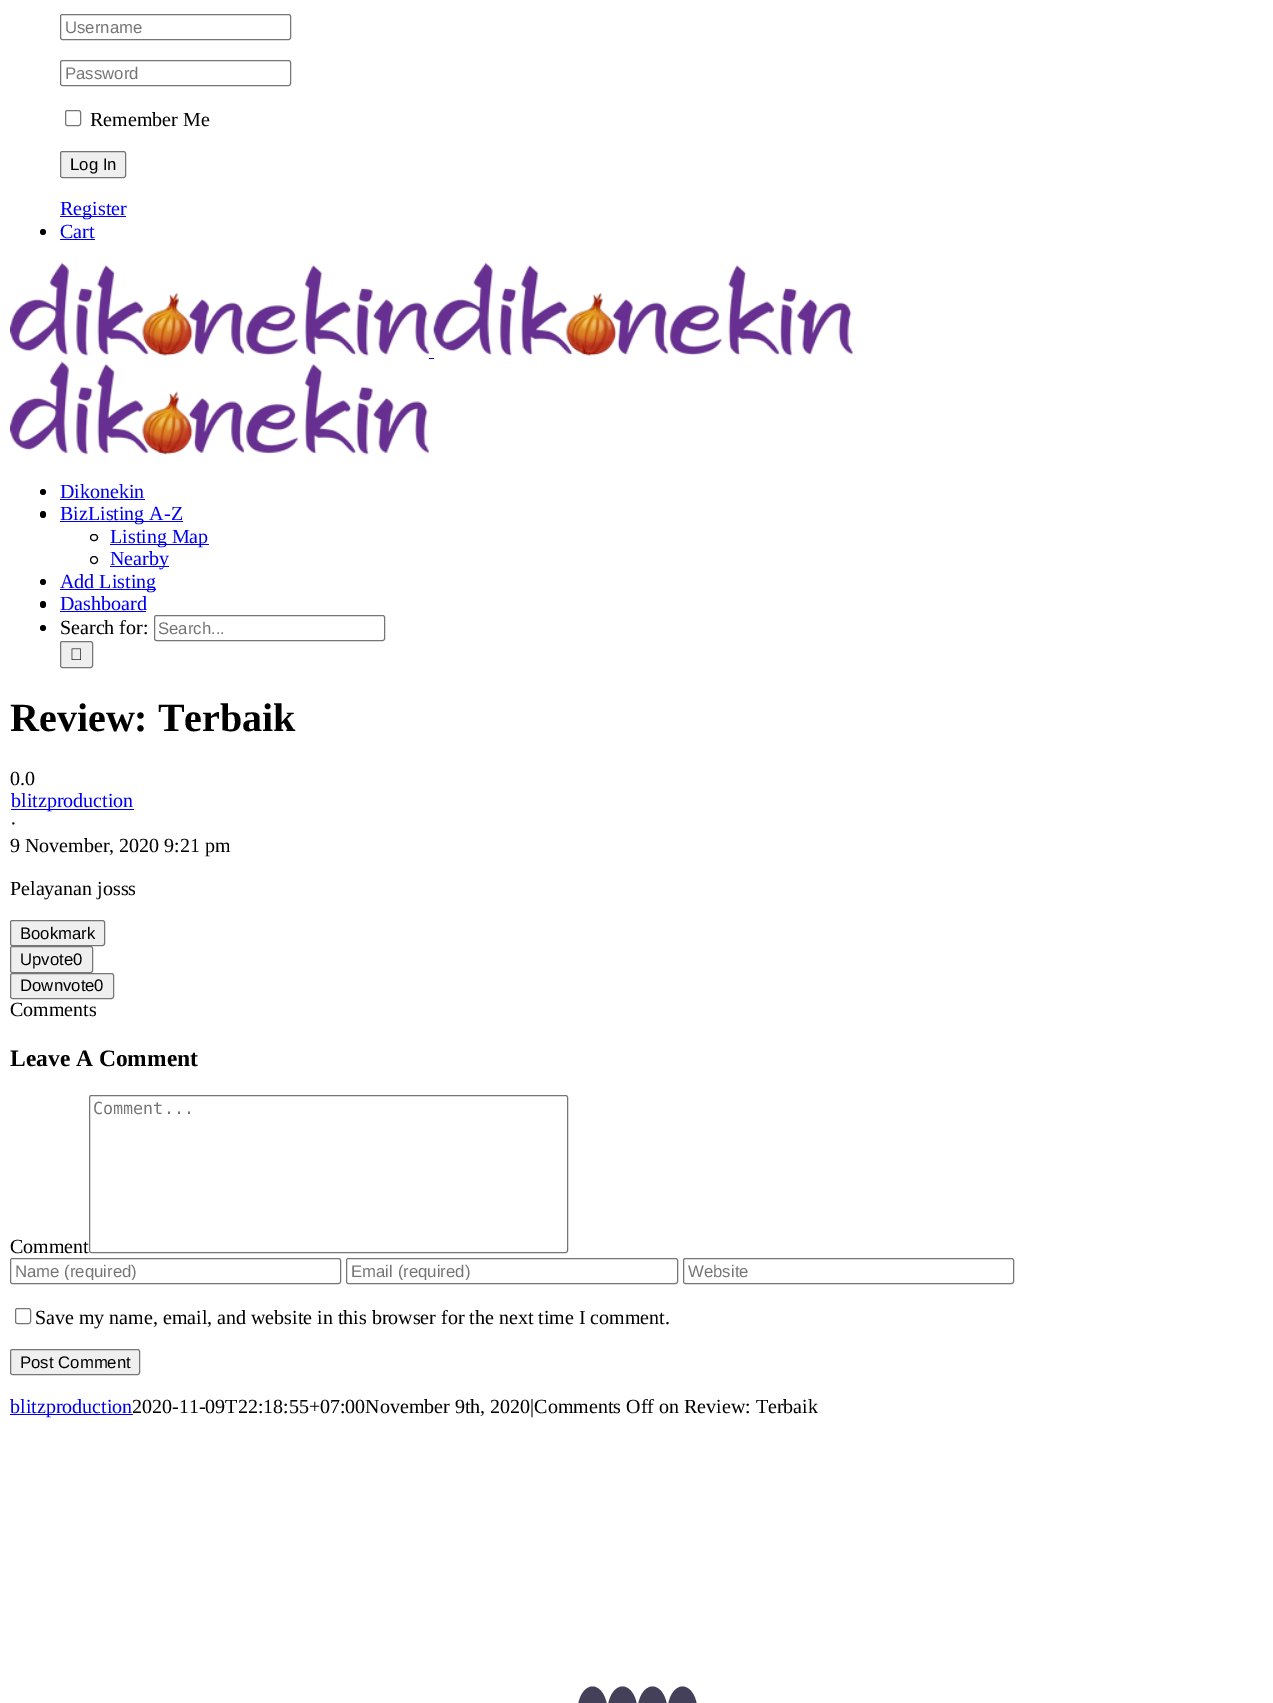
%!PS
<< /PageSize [1273 1703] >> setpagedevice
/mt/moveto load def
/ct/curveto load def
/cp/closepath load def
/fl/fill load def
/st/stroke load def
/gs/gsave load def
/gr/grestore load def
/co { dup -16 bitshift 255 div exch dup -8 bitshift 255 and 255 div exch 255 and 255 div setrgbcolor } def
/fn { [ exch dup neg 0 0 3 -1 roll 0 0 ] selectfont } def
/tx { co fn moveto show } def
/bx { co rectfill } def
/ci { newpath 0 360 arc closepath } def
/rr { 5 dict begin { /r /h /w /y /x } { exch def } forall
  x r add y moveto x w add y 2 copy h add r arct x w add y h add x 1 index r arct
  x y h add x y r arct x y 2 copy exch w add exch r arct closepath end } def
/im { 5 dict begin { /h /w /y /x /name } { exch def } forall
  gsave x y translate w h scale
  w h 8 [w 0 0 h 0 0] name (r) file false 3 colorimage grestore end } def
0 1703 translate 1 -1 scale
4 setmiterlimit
0 0 1273 1703 16#FFFFFF bx
16#767676 co
60.5 14.5 230 25 2 rr st
60.5 60.5 230 25 2 rr st
65.5 110.5 15 15 2 rr st
16#EFEFEF co
60.5 151.5 65 26 2 rr gs fl gr
16#767676 co
st
60 216 66 1 16#0000EE bx
16#000000 co
43 232 3 ci fl
60 239 35 1 16#0000EE bx
(media/1.raw) 10 262 419 94 im
(media/2.raw) 433 262 420 94 im
429 358 5 1 16#0000EE bx
(media/3.raw) 10 361 419 94 im
16#000000 co
43 492 3 ci fl
60 499 85 1 16#0000EE bx
16#000000 co
40 511 6 7 3 rr fl
60 521 123 1 16#0000EE bx
16#000000 co
90.5 534.5 7 6 3 rr st
110 544 99 1 16#0000EE bx
16#000000 co
94 560 3.5 ci st
110 566 59 1 16#0000EE bx
16#000000 co
43 582 3 ci fl
60 589 96 1 16#0000EE bx
16#000000 co
40 601 6 7 3 rr fl
60 611 86 1 16#0000EE bx
16#000000 co
43 628 3 ci fl
16#767676 co
154.5 615.5 230 25 2 rr st
16#EFEFEF co
60.5 641.5 32 26 2 rr gs fl gr
16#767676 co
st
(media/4.raw) 71 648 10 12 im
11 809 123 1 16#0000EE bx
16#EFEFEF co
10.5 920.5 94 25 2 rr gs fl gr
16#767676 co
st
16#EFEFEF co
10.5 946.5 82 26 2 rr gs fl gr
16#767676 co
st
16#EFEFEF co
10.5 973.5 103 25 2 rr gs fl gr
16#767676 co
st
89.5 1095.5 478 157 2 rr st
10.5 1258.5 330 25 2 rr st
346.5 1258.5 331 25 2 rr st
683.5 1258.5 330 25 2 rr st
15.5 1308.5 15 15 2 rr st
16#EFEFEF co
10.5 1349.5 129 25 2 rr gs fl gr
16#767676 co
st
10 1414 123 1 16#0000EE bx
16#44405A co
592.5 1686.5 mt 601 1686.5 607.5 1698 607.5 1712 ct 607.5 1726 601 1737.5 592.5 1737.5 ct 584 1737.5 577.5 1726 577.5 1712 ct 577.5 1698 584 1686.5 592.5 1686.5 ct cp fl
622.5 1686.5 mt 631 1686.5 637.5 1698 637.5 1712 ct 637.5 1726 631 1737.5 622.5 1737.5 ct 614 1737.5 607.5 1726 607.5 1712 ct 607.5 1698 614 1686.5 622.5 1686.5 ct cp fl
652.5 1686.5 mt 661 1686.5 667.5 1698 667.5 1712 ct 667.5 1726 661 1737.5 652.5 1737.5 ct 644 1737.5 637.5 1726 637.5 1712 ct 637.5 1698 644 1686.5 652.5 1686.5 ct cp fl
682.5 1686.5 mt 691 1686.5 697.5 1698 697.5 1712 ct 697.5 1726 691 1737.5 682.5 1737.5 ct 674 1737.5 667.5 1726 667.5 1712 ct 667.5 1698 674 1686.5 682.5 1686.5 ct cp fl
(Username) 65 33 /LiberationSans-Regular 16.75 16#757575 tx
(Password) 65 79 /LiberationSans-Regular 16.75 16#757575 tx
(Remember Me) 90 126 /LiberationSerif-Regular 20 16#000000 tx
(Log In) 70 170 /LiberationSans-Regular 16.75 16#000000 tx
(Register) 60 215 /LiberationSerif-Regular 20 16#0000EE tx
(Cart) 60 238 /LiberationSerif-Regular 20 16#0000EE tx
(Dikonekin) 60 498 /LiberationSerif-Regular 20 16#0000EE tx
(BizListing A-Z) 60 520 /LiberationSerif-Regular 20 16#0000EE tx
(Listing Map) 110 543 /LiberationSerif-Regular 20 16#0000EE tx
(Nearby) 110 565 /LiberationSerif-Regular 20 16#0000EE tx
(Add Listing) 60 588 /LiberationSerif-Regular 20 16#0000EE tx
(Dashboard) 60 610 /LiberationSerif-Regular 20 16#0000EE tx
(Search for:) 60 634 /LiberationSerif-Regular 20 16#000000 tx
(Search...) 158 634 /LiberationSans-Regular 16.75 16#757575 tx
(Review: Terbaik) 10 731 /LiberationSerif-Bold 40 16#000000 tx
(0.0) 10 785 /LiberationSerif-Regular 20 16#000000 tx
(blitzproduction) 11 807 /LiberationSerif-Regular 20 16#0000EE tx
(·) 10 830 /LiberationSerif-Regular 20 16#000000 tx
(9 November, 2020 9:21 pm) 10 852 /LiberationSerif-Regular 20 16#000000 tx
(Pelayanan josss) 10 895 /LiberationSerif-Regular 20 16#000000 tx
(Bookmark) 20 939 /LiberationSans-Regular 16.75 16#000000 tx
(Upvote0) 20 965 /LiberationSans-Regular 16.75 16#000000 tx
(Downvote0) 20 991 /LiberationSans-Regular 16.75 16#000000 tx
(Comments) 10 1016 /LiberationSerif-Regular 20 16#000000 tx
(Leave A Comment) 10 1066 /LiberationSerif-Bold 23.5 16#000000 tx
(Comment...) 93 1114 /DejaVuSansMono-Regular 16.75 16#757575 tx
(Comment) 10 1253 /LiberationSerif-Regular 20 16#000000 tx
gs
15 1261 321 19 rectclip
(Name \(required\)) 15 1277 /LiberationSans-Regular 16.75 16#757575 tx
gr
gs
351 1261 322 19 rectclip
(Email \(required\)) 351 1277 /LiberationSans-Regular 16.75 16#757575 tx
gr
(Website) 688 1277 /LiberationSans-Regular 16.75 16#757575 tx
(Save my name, email, and website in this browser for the next time I comment.) 35 1324 /LiberationSerif-Regular 20 16#000000 tx
(Post Comment) 20 1368 /LiberationSans-Regular 16.75 16#000000 tx
(blitzproduction) 10 1413 /LiberationSerif-Regular 20 16#0000EE tx
(2020-11-09T22:18:55+07:00November 9th, 2020|Comments Off on Review: Terbaik) 132 1413 /LiberationSerif-Regular 20 16#000000 tx
showpage
